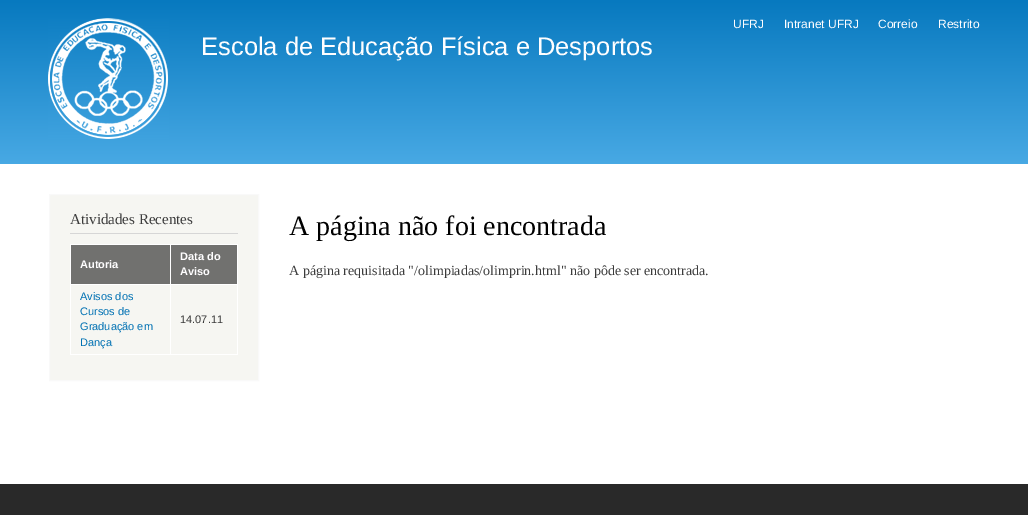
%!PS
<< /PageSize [1028 515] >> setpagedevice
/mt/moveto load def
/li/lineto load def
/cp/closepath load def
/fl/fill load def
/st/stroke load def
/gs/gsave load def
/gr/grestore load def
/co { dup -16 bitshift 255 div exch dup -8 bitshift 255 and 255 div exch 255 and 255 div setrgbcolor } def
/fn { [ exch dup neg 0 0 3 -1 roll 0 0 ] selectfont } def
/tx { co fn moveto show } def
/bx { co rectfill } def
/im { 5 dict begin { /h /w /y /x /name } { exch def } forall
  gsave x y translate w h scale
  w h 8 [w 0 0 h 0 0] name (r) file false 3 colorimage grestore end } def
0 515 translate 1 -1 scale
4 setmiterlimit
0 0 1028 515 16#FFFFFF bx
gs 0 0 mt 1028 0 li 1028 164 li 0 164 li cp clip newpath
<< /ShadingType 2 /ColorSpace /DeviceRGB /Coords [514 0 514 164] /Extend [true true] /Function << /FunctionType 2 /Domain [0 1] /C0 [.027 .475 .749] /C1 [.282 .663 .894] /N 1 >> >> shfill gr
(media/1.raw) 48 18 121 121 im
16#F6F6F2 co
49.5 194.5 mt 258.5 194.5 li 258.5 380.5 li 49.5 380.5 li cp gs fl gr
16#F9F9F9 co
st
70 233 168 1 16#D6D6D6 bx
71 245 99 39 16#71716F bx
170 244 68 1 16#FFFFFF bx
170 284 68 1 16#FFFFFF bx
237 284 1 71 16#FFFFFF bx
170 354 68 1 16#FFFFFF bx
170 284 1 71 16#FFFFFF bx
70 284 101 1 16#FFFFFF bx
170 244 1 41 16#FFFFFF bx
70 244 101 1 16#FFFFFF bx
70 354 101 1 16#FFFFFF bx
70 284 1 71 16#FFFFFF bx
70 244 1 41 16#FFFFFF bx
171 245 66 39 16#71716F bx
237 244 1 41 16#FFFFFF bx
0 484 1028 31 16#292929 bx
(UFRJ) 733 28 /LiberationSans-Regular 12 16#FFFEFF tx
(Intranet UFRJ) 784 28 /LiberationSans-Regular 12 16#FFFEFF tx
(Correio) 878 28 /LiberationSans-Regular 12 16#FFFEFF tx
(Restrito) 938 28 /LiberationSans-Regular 12 16#FFFEFF tx
(Escola de Educação Física e Desportos) 201 55 /LiberationSans-Regular 25.5 16#FFFEFF tx
(Atividades Recentes) 70 224 /LiberationSerif-Regular 15 16#3B3B3B tx
(Autoria) 80 268 /LiberationSans-Bold 11 16#FFFEFF tx
(Data do) 180 260 /LiberationSans-Bold 11 16#FFFEFF tx
(Aviso) 180 275 /LiberationSans-Bold 11 16#FFFEFF tx
(Avisos dos) 80 300 /LiberationSans-Regular 11 16#0071B3 tx
(Cursos de) 80 315 /LiberationSans-Regular 11 16#0071B3 tx
(Graduação em) 80 330 /LiberationSans-Regular 11 16#0071B3 tx
(Dança) 80 346 /LiberationSans-Regular 11 16#0071B3 tx
(14.07.11) 180 323 /LiberationSans-Regular 11 16#3B3B3B tx
(A página não foi encontrada) 289 235 /LiberationSerif-Regular 28 16#000000 tx
(A página requisitada "/olimpiadas/olimprin.html" não pôde ser encontrada.) 289 275 /LiberationSerif-Regular 14 16#3B3B3B tx
showpage
